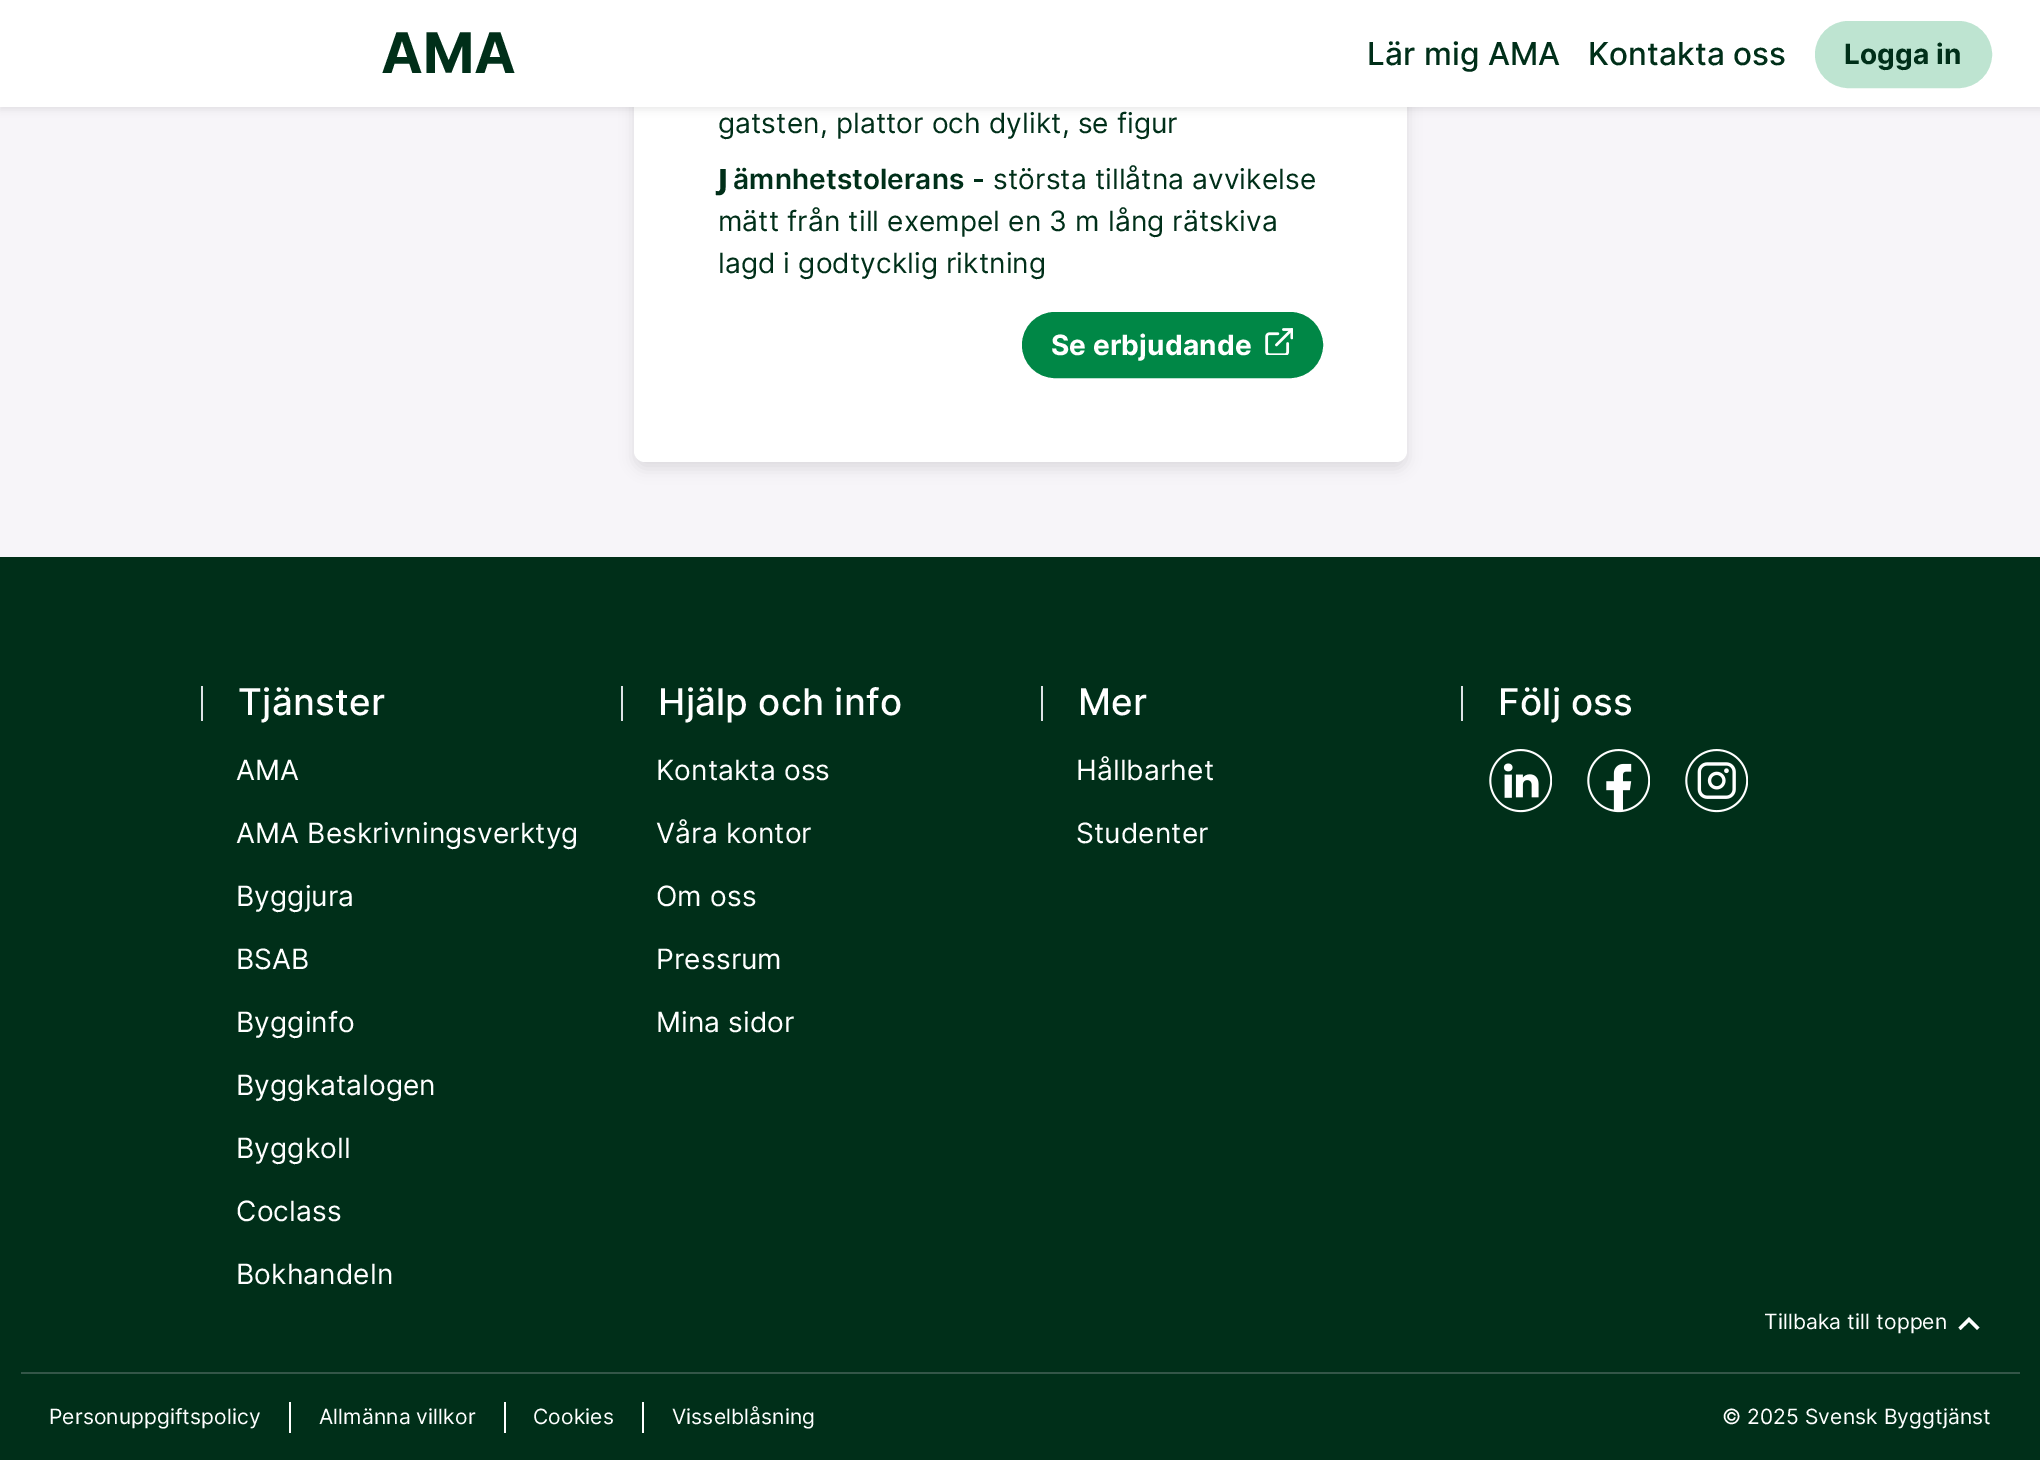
%!PS
<< /PageSize [2040 1460] /PageUsesTransparency true >> setpagedevice
/mt/moveto load def
/li/lineto load def
/cp/closepath load def
/fl/fill load def
/st/stroke load def
/gs/gsave load def
/gr/grestore load def
/lw/setlinewidth load def
/co { dup -16 bitshift 255 div exch dup -8 bitshift 255 and 255 div exch 255 and 255 div setrgbcolor } def
/fn { [ exch dup neg 0 0 3 -1 roll 0 0 ] selectfont } def
/tx { co fn moveto show } def
/bx { co rectfill } def
/al { dup .setfillconstantalpha .setstrokeconstantalpha } def
/rr { 5 dict begin { /r /h /w /y /x } { exch def } forall
  x r add y moveto x w add y 2 copy h add r arct x w add y h add x 1 index r arct
  x y h add x y r arct x y 2 copy exch w add exch r arct closepath end } def
/sh { 12 dict begin { /a /b /q /h /w /y /x } { exch def } forall gsave /was 0 def
  9 -2 -9 { dup b mul 4 div /e exch def 1 sub .425 mul 2.718 exch exp 1 add a .99 .min exch div /now exch def
    1 1 now sub 1 was sub div sub al /was now def
    w h .min e 2 mul add 0 gt { x e sub y e sub w e 2 mul add h e 2 mul add
      q e add b .6 mul add w h .min 2 div e add .min 0 .max rr fill } if } for grestore end } def
/im { 5 dict begin { /h /w /y /x /name } { exch def } forall
  gsave x y translate w h scale
  w h 8 [w 0 0 h 0 0] name (r) file false 3 colorimage grestore end } def
0 .pushpdf14devicefilter
0 1460 translate 1 -1 scale
4 setmiterlimit
0 0 2040 1460 16#F7F5F9 bx
16#000000 co
634 -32 773 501 11 7 .1 sh
16#FFFFFF co
634 -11 773 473 11 rr fl
16#000000 co
0 4 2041 106 0 3.5 .07 sh
0 0 2040 107 16#FFFFFF bx
16#BEE4D1 co
1816 22 175 65 32.5 rr gs fl gr
2 lw
st
16#008746 co
1023 313 299 64 32 rr gs fl gr
st
(media/1.raw) 1265 328 28 27 im
0 557 2040 903 16#002F19 bx
201 686 2 35 16#DEE2E6 bx
621 686 2 35 16#DEE2E6 bx
1041 686 2 35 16#DEE2E6 bx
1461 686 2 35 16#DEE2E6 bx
(media/2.raw) 1489 749 63 64 im
(media/3.raw) 1587 749 63 64 im
(media/4.raw) 1685 749 63 64 im
16#FFFFFF co
1977 1330 mt 1969 1322 li 1960.5 1330 li 1958.5 1327.5 li 1969 1317 li 1979.5 1327.5 li cp fl
21 1372 1999 2 16#345648 bx
289 1402 2 31 16#FFFFFF bx
504 1402 2 31 16#FFFFFF bx
642 1402 2 31 16#FFFFFF bx
(AMA) 381 73 /Inter-Bold 56 16#002F19 tx
/Inter-Medium 31.5 fn
1367 65 mt .15 0 (Lär mig AMA) ashow
1588 65 mt .15 0 (Kontakta oss) ashow
/Inter-Bold 28 fn
1844 64 mt .15 0 (Logga in) ashow
/Inter-Regular 28 fn
718 133 mt .15 0 (gatsten, plattor och dylikt, se figur) ashow
/NotoSans-Black 28 fn
718 189 mt .15 0 (J) ashow
/Inter-SemiBold 28 fn
733 189 mt .15 0 (ämnhetstolerans -) ashow
/Inter-Regular 28 fn
993 189 mt .15 0 (största tillåtna avvikelse) ashow
718 231 mt .15 0 (mätt från till exempel en 3 m lång rätskiva) ashow
718 273 mt .15 0 (lagd i godtycklig riktning) ashow
/Inter-Bold 28 fn
16#FFFFFF co
1051 355 mt .15 0 (Se erbjudande) ashow
/Inter-Medium 36.75 fn
238 715 mt .25 0 (Tjänster) ashow
/Inter-Regular 28 fn
236 780 mt .15 0 (AMA) ashow
236 843 mt .15 0 (AMA Beskrivningsverktyg) ashow
236 906 mt .15 0 (Byggjura) ashow
236 969 mt .15 0 (BSAB) ashow
236 1032 mt .15 0 (Bygginfo) ashow
236 1095 mt .15 0 (Byggkatalogen) ashow
236 1158 mt .15 0 (Byggkoll) ashow
236 1221 mt .15 0 (Coclass) ashow
236 1284 mt .15 0 (Bokhandeln) ashow
/Inter-Medium 36.75 fn
658 715 mt .25 0 (Hjälp och info) ashow
/Inter-Regular 28 fn
656 780 mt .15 0 (Kontakta oss) ashow
656 843 mt .15 0 (Våra kontor) ashow
656 906 mt .15 0 (Om oss) ashow
656 969 mt .15 0 (Pressrum) ashow
656 1032 mt .15 0 (Mina sidor) ashow
/Inter-Medium 36.75 fn
1078 715 mt .25 0 (Mer) ashow
/Inter-Regular 28 fn
1076 780 mt .15 0 (Hållbarhet) ashow
1076 843 mt .15 0 (Studenter) ashow
/Inter-Medium 36.75 fn
1498 715 mt .25 0 (Följ oss) ashow
/Inter-Regular 21 fn
1764 1329 mt .1 0 (Tillbaka till toppen) ashow
49 1424 mt .1 0 (Personuppgiftspolicy) ashow
319 1424 mt .1 0 (Allmänna villkor) ashow
533 1424 mt .1 0 (Cookies) ashow
672 1424 mt .1 0 (Visselblåsning) ashow
1722 1424 mt .1 0 (© 2025 Svensk Byggtjänst) ashow
.poppdf14devicefilter showpage
